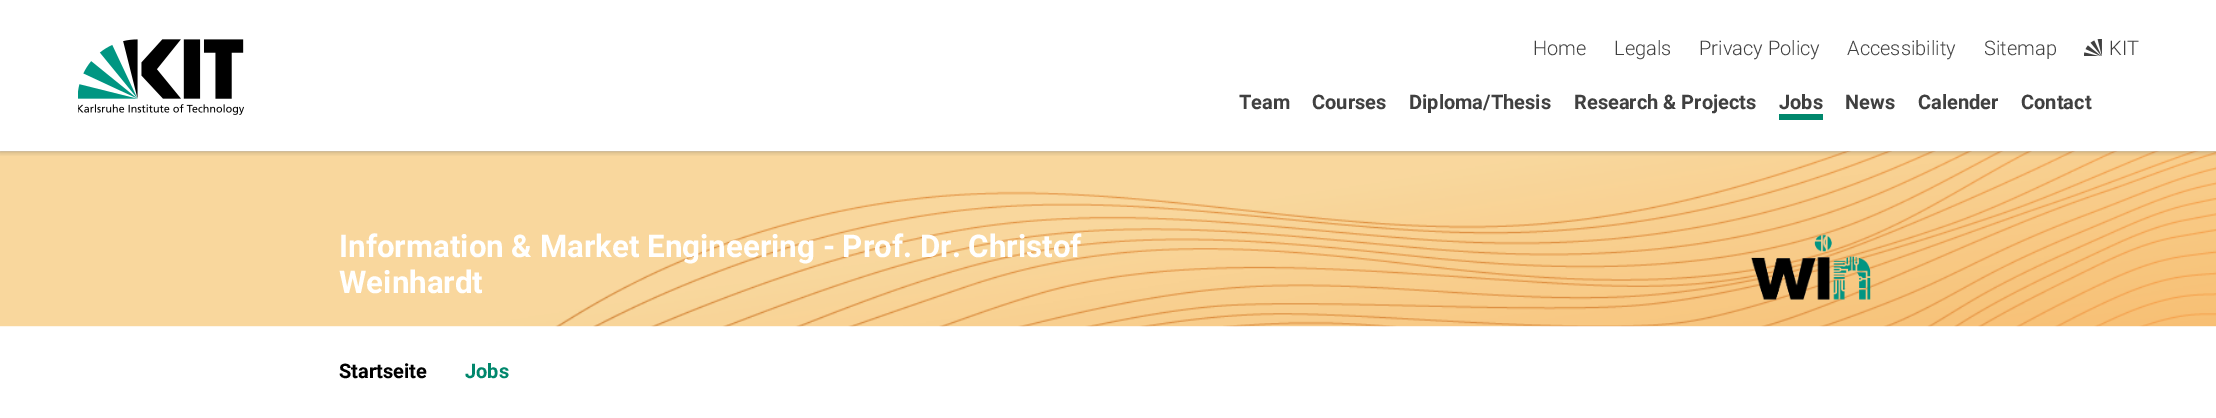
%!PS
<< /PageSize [2216 418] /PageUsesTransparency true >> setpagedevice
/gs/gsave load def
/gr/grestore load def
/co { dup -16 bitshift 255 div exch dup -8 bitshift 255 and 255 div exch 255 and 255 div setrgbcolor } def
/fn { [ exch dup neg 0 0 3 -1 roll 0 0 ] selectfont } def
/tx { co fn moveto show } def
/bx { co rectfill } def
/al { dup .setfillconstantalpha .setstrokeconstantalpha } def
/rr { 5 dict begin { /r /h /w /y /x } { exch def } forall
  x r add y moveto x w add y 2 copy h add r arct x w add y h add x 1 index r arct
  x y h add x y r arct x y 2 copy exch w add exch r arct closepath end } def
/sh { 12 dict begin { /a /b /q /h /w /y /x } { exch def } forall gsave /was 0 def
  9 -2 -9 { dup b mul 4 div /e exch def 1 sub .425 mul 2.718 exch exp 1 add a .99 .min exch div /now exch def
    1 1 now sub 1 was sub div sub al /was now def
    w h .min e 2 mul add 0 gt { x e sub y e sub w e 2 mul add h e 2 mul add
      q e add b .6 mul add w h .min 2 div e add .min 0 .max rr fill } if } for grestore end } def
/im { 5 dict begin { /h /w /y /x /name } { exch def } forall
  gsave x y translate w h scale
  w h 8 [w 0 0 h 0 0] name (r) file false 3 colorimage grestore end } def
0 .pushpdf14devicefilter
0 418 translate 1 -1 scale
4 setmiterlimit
0 0 2216 418 16#FFFFFF bx
(media/3.raw) 0 151 2216 176 im
gs
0 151 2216 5 rectclip
16#404040 co
0 0 2216 151 0 3 .5 sh
gr
(media/1.raw) 78 39 166 76 im
(media/2.raw) 2084 39 18 17 im
1779 114 44 6 16#00876C bx
(media/4.raw) 1751 234 120 66 im
(Home) 1533 55 /Roboto-Light 20 16#404040 tx
(Legals) 1614 55 /Roboto-Light 20 16#404040 tx
(Privacy Policy) 1699 55 /Roboto-Light 20 16#404040 tx
(Accessibility) 1847 55 /Roboto-Light 20 16#404040 tx
(Sitemap) 1984 55 /Roboto-Light 20 16#404040 tx
(KIT) 2109 55 /Roboto-Light 20 16#404040 tx
(Team) 1239 109 /Roboto-Bold 20 16#404040 tx
(Courses) 1312 109 /Roboto-Bold 20 16#404040 tx
(Diploma/Thesis) 1409 109 /Roboto-Bold 20 16#404040 tx
(Research & Projects) 1574 109 /Roboto-Bold 20 16#404040 tx
(Jobs) 1779 109 /Roboto-Bold 20 16#404040 tx
(News) 1845 109 /Roboto-Bold 20 16#404040 tx
(Calender) 1918 109 /Roboto-Bold 20 16#404040 tx
(Contact) 2021 109 /Roboto-Bold 20 16#404040 tx
(Information & Market Engineering - Prof. Dr. Christof) 339 257 /Roboto-Bold 31.25 16#FFFFFF tx
(Weinhardt) 339 293 /Roboto-Bold 31.25 16#FFFFFF tx
(Startseite) 339 378 /Roboto-Bold 20 16#000000 tx
(Jobs) 465 378 /Roboto-Bold 20 16#00876C tx
.poppdf14devicefilter showpage
